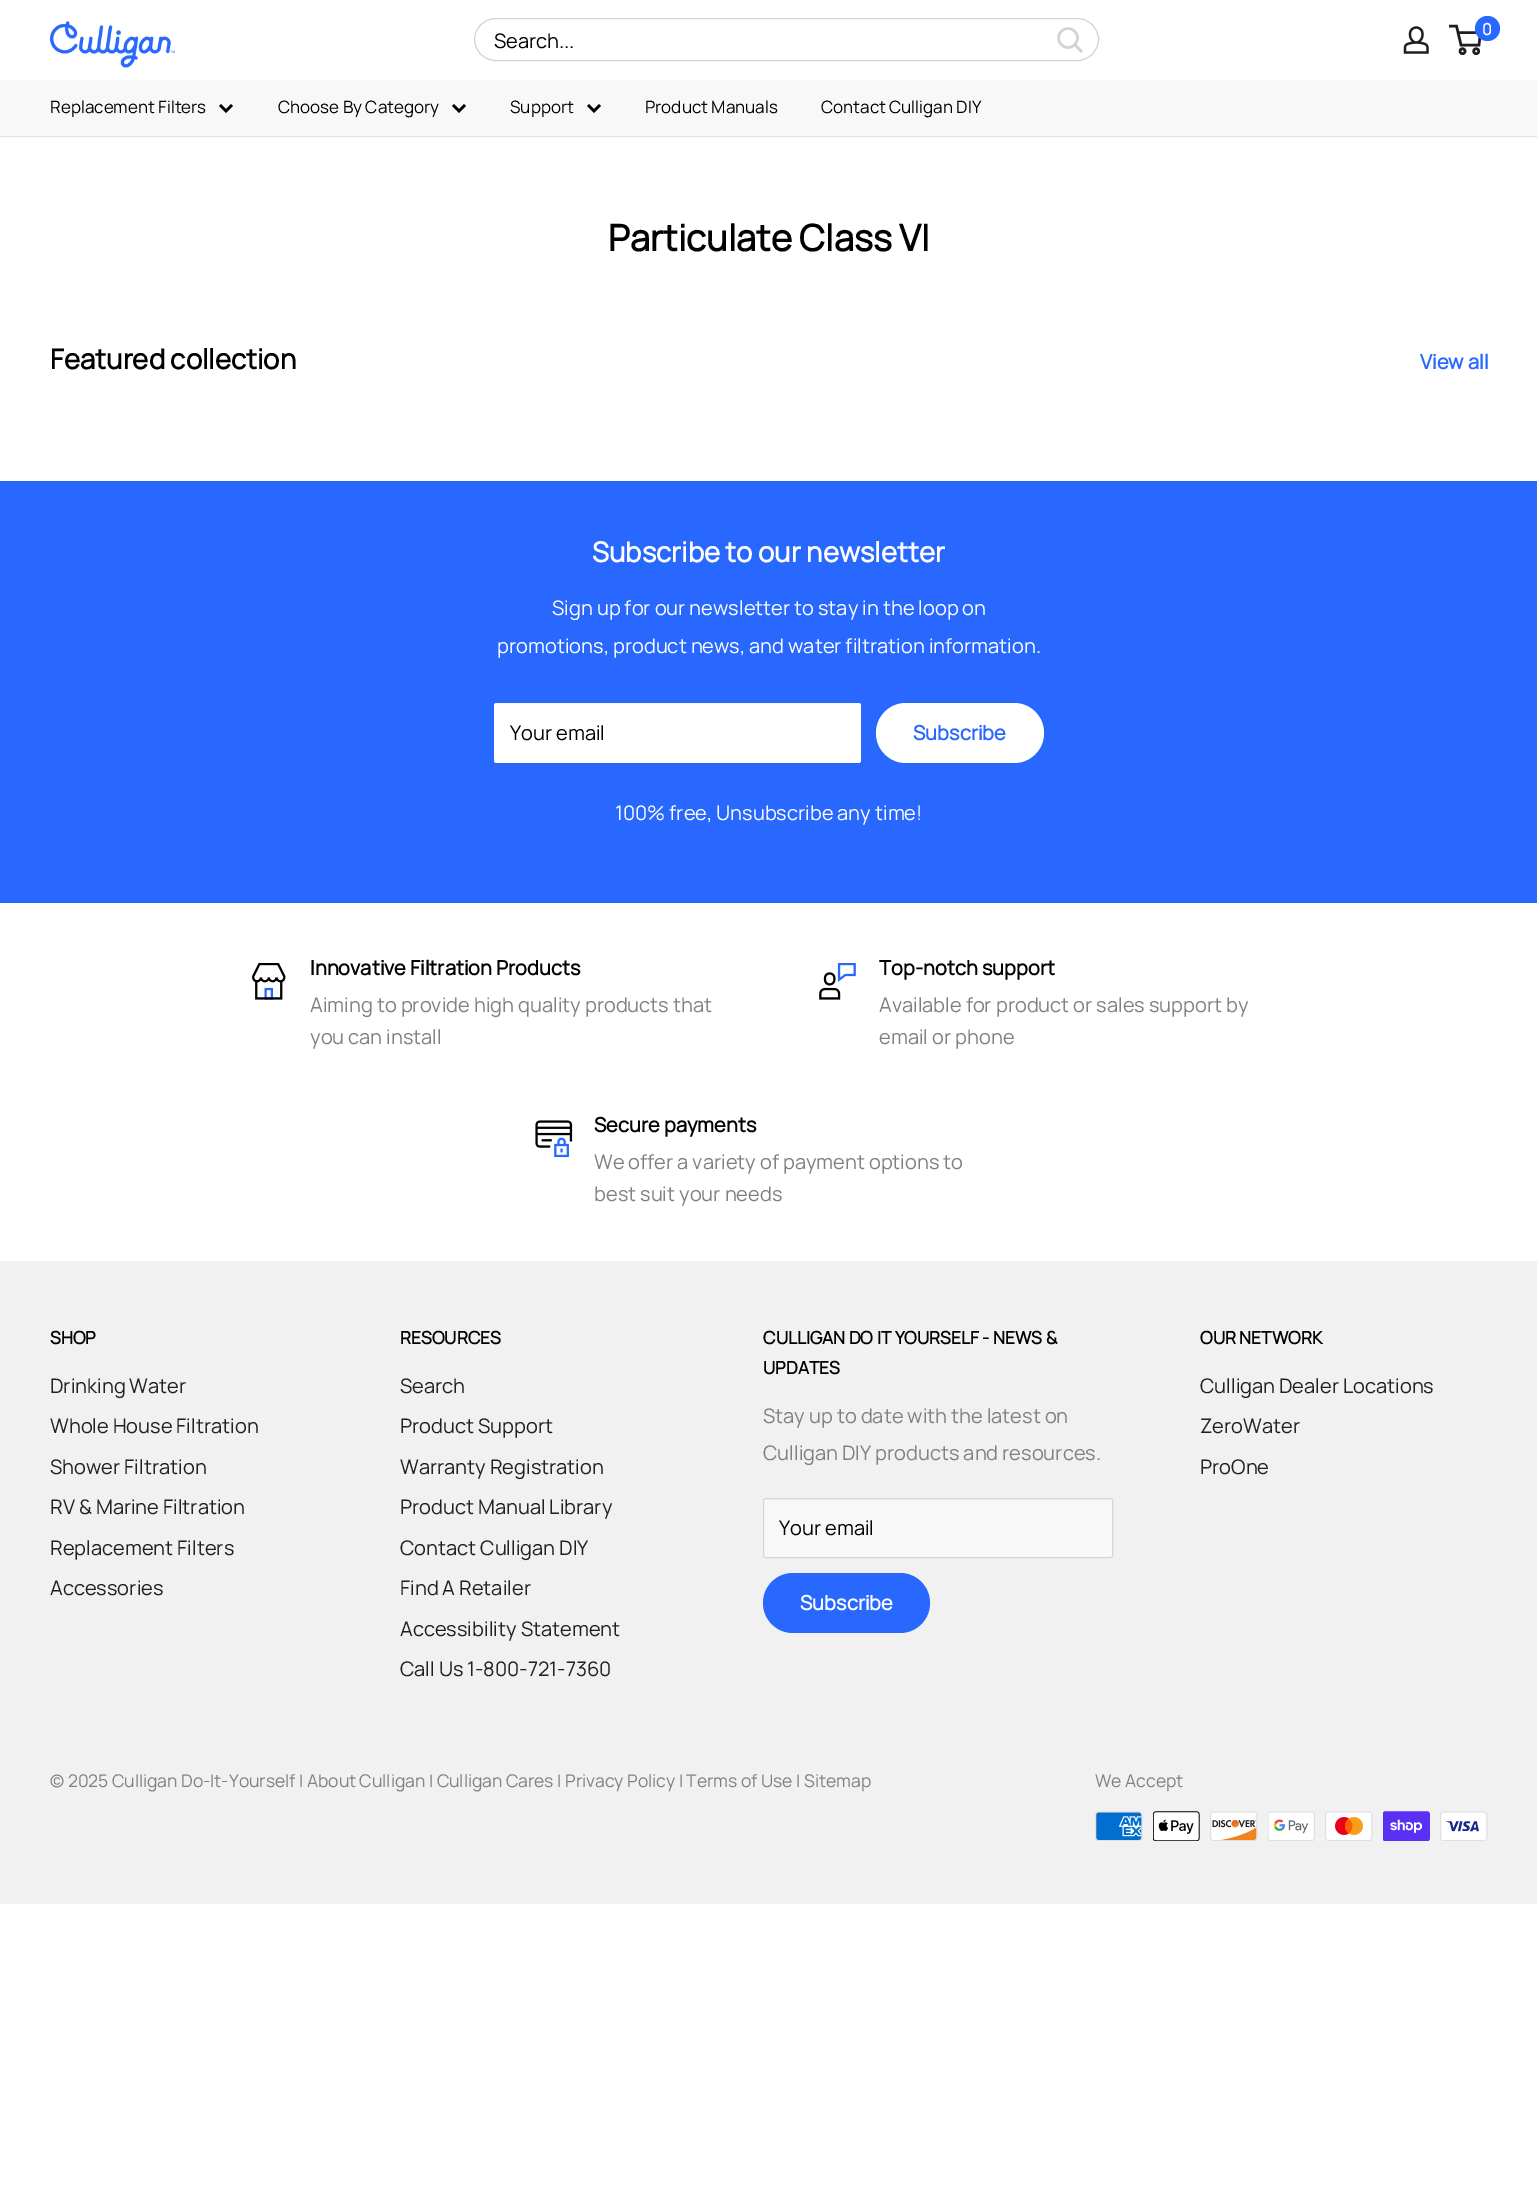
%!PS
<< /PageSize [1537 2197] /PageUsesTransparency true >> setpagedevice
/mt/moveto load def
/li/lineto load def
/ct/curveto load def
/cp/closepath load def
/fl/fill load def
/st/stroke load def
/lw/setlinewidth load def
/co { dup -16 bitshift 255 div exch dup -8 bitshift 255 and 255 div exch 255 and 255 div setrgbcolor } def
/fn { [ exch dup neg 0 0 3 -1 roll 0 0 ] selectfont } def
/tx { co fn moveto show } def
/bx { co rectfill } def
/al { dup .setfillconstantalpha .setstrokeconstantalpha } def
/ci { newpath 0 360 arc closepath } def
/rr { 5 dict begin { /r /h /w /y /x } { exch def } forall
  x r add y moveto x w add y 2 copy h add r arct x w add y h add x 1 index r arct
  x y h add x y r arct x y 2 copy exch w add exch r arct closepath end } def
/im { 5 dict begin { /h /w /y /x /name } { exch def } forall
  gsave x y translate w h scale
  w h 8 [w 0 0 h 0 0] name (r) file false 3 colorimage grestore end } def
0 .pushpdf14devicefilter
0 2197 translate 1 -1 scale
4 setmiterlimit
0 0 1537 2197 16#FFFFFF bx
(media/1.raw) 50 21 125 47 im
(media/2.raw) 1403 26 26 28 im
16#1E1E1E co
2.5 lw
1462.5 51.2 2.5 ci st
1476.2 51.2 2.5 ci st
1458 32.5 mt 1480.5 32.5 li 1479 45 li 1461 45 li 1456.5 26 li 1449 26 li st
16#2968FE co
1487.5 28.5 12.5 ci fl
16#D3D3D3 co
1 lw
474.5 18.5 624 42 21 rr st
2.5 lw
2 setlinecap
1081 51 mt 1075 45 li st
0 setlinecap
1068 38 9.5 ci st
0 80 1537 58 16#F8F8F8 bx
0 136 1537 1 16#E1E3E4 bx
16#000000 co
2 setlinecap
231 106 mt 226 111 li 221 106 li st
464 106 mt 459 111 li 454 106 li st
599 106 mt 594 111 li 589 106 li st
0 481 1537 422 16#2968FE bx
16#FFFFFF co
494 703 367 60 2.5 rr fl
0.25 al
16#E1E3E4 co
496 704 mt 859 704 li 860 704 861 705 861 706 ct 861 704 860 703 858 703 ct 496 703 li 495 703 494 704 494 706 ct 494 705 495 704 496 704 ct cp fl
1 al
16#FFFFFF co
876 703 168 60 30 rr fl
(media/3.raw) 252 963 34 37 im
(media/4.raw) 819 963 37 37 im
(media/5.raw) 535 1120 38 38 im
0 1261 1537 643 16#F1F1F1 bx
16#F8F8F8 co
763 1498 350 60 2.5 rr fl
16#F2F3F3 co
765 1500 mt 1110 1500 li 1111 1500 1111 1501 1111 1501 ct 1111 1500 li 1110 1499 li 764 1499 li 764 1501 li cp fl
16#D4D6D8 co
1 lw
0 setlinecap
763.5 1498.5 349 59 2 rr st
16#2968FE co
763 1573 167 60 30 rr fl
(media/6.raw) 1095 1811 48 30 im
(media/7.raw) 1153 1811 47 30 im
(media/8.raw) 1210 1811 48 30 im
(media/9.raw) 1268 1811 47 30 im
(media/10.raw) 1325 1811 48 30 im
(media/11.raw) 1383 1811 47 30 im
(media/12.raw) 1440 1811 48 30 im
(0) 1482 35 /Manrope-Bold 16 16#FFFFFF tx
(Search...) 494 48 /Manrope-ExtraLight 20 16#000000 tx
(Replacement Filters) 50 113 /Manrope-ExtraLight 17 16#000000 tx
(Choose By Category) 278 113 /Manrope-ExtraLight 17 16#000000 tx
(Support) 510 113 /Manrope-ExtraLight 17 16#000000 tx
(Product Manuals) 645 113 /Manrope-ExtraLight 17 16#000000 tx
(Contact Culligan DIY) 821 113 /Manrope-ExtraLight 17 16#000000 tx
(Particulate Class VI) 608 251 /Manrope-Bold 36.25 16#000000 tx
(Featured collection) 50 369 /Manrope-Bold 27.5 16#000000 tx
(View all) 1420 369 /Manrope-Bold 20 16#2968FE tx
(Subscribe to our newsletter) 592 562 /Manrope-Bold 27.5 16#FFFFFF tx
(Sign up for our newsletter to stay in the loop on) 552 615 /Manrope-ExtraLight 20 16#FFFFFF tx
(promotions, product news, and water filtration information.) 497 653 /Manrope-ExtraLight 20 16#FFFFFF tx
(Your email) 510 740 /Manrope-ExtraLight 20 16#000000 tx
(Subscribe) 913 740 /Manrope-Bold 20 16#2968FE tx
(100% free, Unsubscribe any time!) 615 820 /Manrope-ExtraLight 20 16#FFFFFF tx
(Innovative Filtration Products) 310 975 /Manrope-Bold 20 16#000000 tx
(Aiming to provide high quality products that) 310 1012 /Manrope-ExtraLight 20 16#808080 tx
(you can install) 310 1044 /Manrope-ExtraLight 20 16#808080 tx
(Top-notch support) 879 975 /Manrope-Bold 20 16#000000 tx
(Available for product or sales support by) 879 1012 /Manrope-ExtraLight 20 16#808080 tx
(email or phone) 879 1044 /Manrope-ExtraLight 20 16#808080 tx
(Secure payments) 594 1132 /Manrope-Bold 20 16#000000 tx
(We offer a variety of payment options to) 594 1169 /Manrope-ExtraLight 20 16#808080 tx
(best suit your needs) 594 1201 /Manrope-ExtraLight 20 16#808080 tx
(SHOP) 50 1344 /Manrope-Bold 17.5 16#000000 tx
(Drinking Water) 50 1393 /Manrope-ExtraLight 20 16#202020 tx
(Whole House Filtration) 50 1433 /Manrope-ExtraLight 20 16#202020 tx
(Shower Filtration) 50 1474 /Manrope-ExtraLight 20 16#202020 tx
(RV & Marine Filtration) 50 1514 /Manrope-ExtraLight 20 16#202020 tx
(Replacement Filters) 50 1555 /Manrope-ExtraLight 20 16#202020 tx
(Accessories) 50 1595 /Manrope-ExtraLight 20 16#202020 tx
(RESOURCES) 400 1344 /Manrope-Bold 17.5 16#000000 tx
(Search) 400 1393 /Manrope-ExtraLight 20 16#202020 tx
(Product Support) 400 1433 /Manrope-ExtraLight 20 16#202020 tx
(Warranty Registration) 400 1474 /Manrope-ExtraLight 20 16#202020 tx
(Product Manual Library) 400 1514 /Manrope-ExtraLight 20 16#202020 tx
(Contact Culligan DIY) 400 1555 /Manrope-ExtraLight 20 16#202020 tx
(Find A Retailer) 400 1595 /Manrope-ExtraLight 20 16#202020 tx
(Accessibility Statement) 400 1636 /Manrope-ExtraLight 20 16#202020 tx
(Call Us 1-800-721-7360) 400 1676 /Manrope-ExtraLight 20 16#202020 tx
(CULLIGAN DO IT YOURSELF - NEWS &) 763 1344 /Manrope-Bold 17.5 16#000000 tx
(UPDATES) 763 1374 /Manrope-Bold 17.5 16#000000 tx
(Stay up to date with the latest on) 763 1423 /Manrope-ExtraLight 20 16#808080 tx
(Culligan DIY products and resources.) 763 1460 /Manrope-ExtraLight 20 16#808080 tx
(Your email) 779 1535 /Manrope-ExtraLight 20 16#000000 tx
(Subscribe) 800 1610 /Manrope-Bold 20 16#FFFFFF tx
(OUR NETWORK) 1200 1344 /Manrope-Bold 17.5 16#000000 tx
(Culligan Dealer Locations) 1200 1393 /Manrope-ExtraLight 20 16#202020 tx
(ZeroWater) 1200 1433 /Manrope-ExtraLight 20 16#202020 tx
(ProOne) 1200 1474 /Manrope-ExtraLight 20 16#202020 tx
(© 2025 Culligan Do-It-Yourself | About Culligan | Culligan Cares | Privacy Policy | Terms of Use | Sitemap) 50 1787 /Manrope-ExtraLight 17.5 16#808080 tx
(We Accept) 1095 1787 /Manrope-ExtraLight 17.5 16#808080 tx
.poppdf14devicefilter showpage
